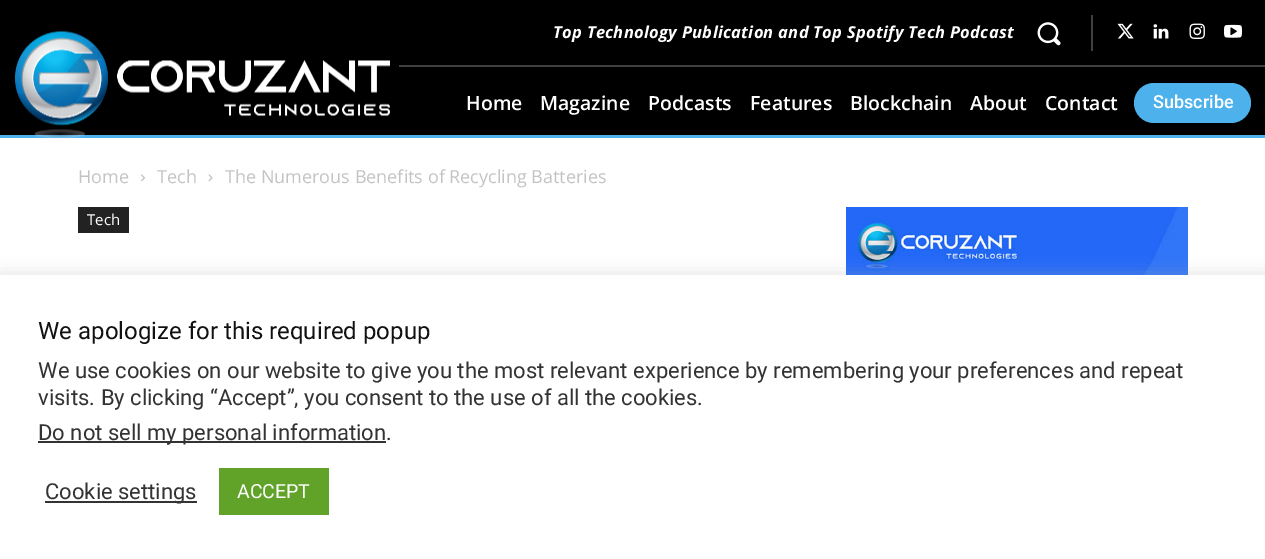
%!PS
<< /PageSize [1265 559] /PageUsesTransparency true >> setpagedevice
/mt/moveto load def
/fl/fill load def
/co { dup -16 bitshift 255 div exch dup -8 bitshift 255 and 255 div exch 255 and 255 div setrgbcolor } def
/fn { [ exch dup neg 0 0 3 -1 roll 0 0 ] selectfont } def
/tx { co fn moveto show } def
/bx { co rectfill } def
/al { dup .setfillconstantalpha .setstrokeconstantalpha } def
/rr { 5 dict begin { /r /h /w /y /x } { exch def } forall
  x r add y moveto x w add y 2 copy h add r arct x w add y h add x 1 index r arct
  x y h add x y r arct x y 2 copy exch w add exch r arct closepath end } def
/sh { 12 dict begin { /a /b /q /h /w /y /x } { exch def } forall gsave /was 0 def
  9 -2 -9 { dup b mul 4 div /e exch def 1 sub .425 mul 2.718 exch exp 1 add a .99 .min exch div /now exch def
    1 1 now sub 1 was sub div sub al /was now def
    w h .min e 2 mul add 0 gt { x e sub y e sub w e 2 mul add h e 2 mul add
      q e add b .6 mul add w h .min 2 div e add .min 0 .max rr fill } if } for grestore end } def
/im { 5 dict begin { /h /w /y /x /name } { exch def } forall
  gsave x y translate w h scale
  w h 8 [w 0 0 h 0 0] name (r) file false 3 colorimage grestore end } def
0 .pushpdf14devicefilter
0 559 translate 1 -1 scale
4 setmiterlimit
0 0 1265 559 16#FFFFFF bx
0 0 1265 135 16#000000 bx
0 135 1265 3 16#4DB2EC bx
(media/1.raw) 15 31 375 107 im
(media/2.raw) 1037 22 24 24 im
1091 15 2 36 16#404040 bx
(media/3.raw) 1117 23 17 16 im
(media/4.raw) 1153 24 16 15 im
(media/5.raw) 1189 23 16 16 im
(media/6.raw) 1224 24 18 14 im
399 65 866 2 16#404040 bx
16#4DB2EC co
1134 83 117 40 20 rr fl
(media/7.raw) 141 174 4 8 im
(media/8.raw) 208 174 5 8 im
78 207 51 26 16#222222 bx
(media/9.raw) 846 207 342 68 im
16#ACABAB co
0 273 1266 285 0 7.5 .3 sh
0 275 1265 284 16#FFFFFF bx
38 441 348 2 16#333333 bx
45 501 152 2 16#333333 bx
219 468 110 47 16#61A229 bx
/OpenSans-BoldItalic 16.5 fn
16#FFFFFF co
553 38 mt .3 0 (Top Technology Publication and Top Spotify Tech Podcast) ashow
(Home) 466 110 /OpenSans-SemiBold 19.5 16#FFFFFF tx
(Magazine) 540 110 /OpenSans-SemiBold 19.5 16#FFFFFF tx
(Podcasts) 648 110 /OpenSans-SemiBold 19.5 16#FFFFFF tx
(Features) 750 110 /OpenSans-SemiBold 19.5 16#FFFFFF tx
(Blockchain) 850 110 /OpenSans-SemiBold 19.5 16#FFFFFF tx
(About) 970 110 /OpenSans-SemiBold 19.5 16#FFFFFF tx
(Contact) 1045 110 /OpenSans-SemiBold 19.5 16#FFFFFF tx
(Subscribe) 1153 108 /Roboto-Medium 18 16#FFFFFF tx
(Home) 78 183 /OpenSans-Regular 18 16#C3C3C3 tx
(Tech) 157 183 /OpenSans-Regular 18 16#C3C3C3 tx
(The Numerous Benefits of Recycling Batteries) 225 183 /OpenSans-Regular 18 16#C3C3C3 tx
(Tech) 87 225 /OpenSans-Regular 15 16#FFFFFF tx
(We apologize for this required popup) 38 339 /Roboto-Regular 24 16#111111 tx
(We use cookies on our website to give you the most relevant experience by remembering your preferences and repeat) 38 378 /Roboto-Regular 22 16#333333 tx
(visits. By clicking “Accept”, you consent to the use of all the cookies.) 38 405 /Roboto-Regular 22 16#333333 tx
(Do not sell my personal information.) 38 440 /Roboto-Regular 22 16#333333 tx
(Cookie settings) 45 499 /Roboto-Regular 22 16#333333 tx
(ACCEPT) 237 498 /Roboto-Regular 19.5 16#FFFFFF tx
.poppdf14devicefilter showpage
